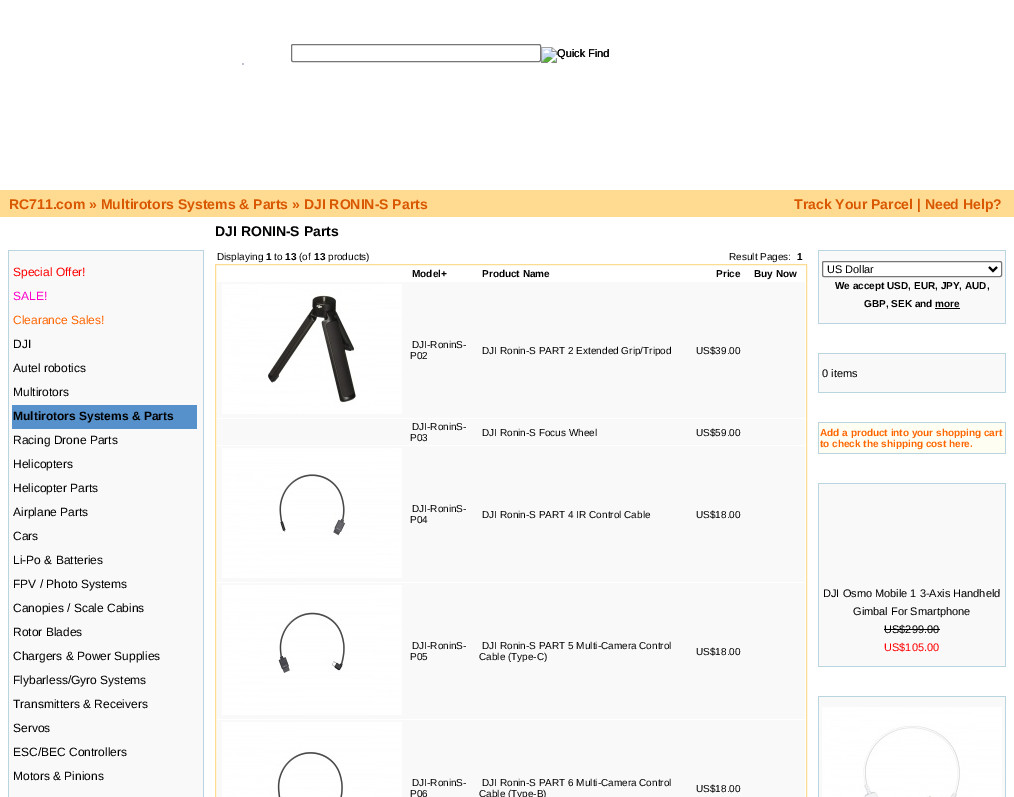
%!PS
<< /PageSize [1014 797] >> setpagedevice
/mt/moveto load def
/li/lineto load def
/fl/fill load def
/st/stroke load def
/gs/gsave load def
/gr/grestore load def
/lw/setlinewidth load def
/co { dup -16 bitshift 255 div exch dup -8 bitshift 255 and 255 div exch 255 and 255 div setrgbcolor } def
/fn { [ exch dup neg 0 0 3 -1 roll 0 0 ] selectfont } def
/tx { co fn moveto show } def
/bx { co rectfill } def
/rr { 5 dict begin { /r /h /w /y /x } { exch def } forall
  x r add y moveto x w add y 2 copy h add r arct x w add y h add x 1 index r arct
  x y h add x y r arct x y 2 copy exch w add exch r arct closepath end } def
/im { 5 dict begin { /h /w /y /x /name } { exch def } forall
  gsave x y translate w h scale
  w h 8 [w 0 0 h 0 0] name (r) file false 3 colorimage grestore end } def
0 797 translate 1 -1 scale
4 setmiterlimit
0 0 1014 797 16#FFFFFF bx
16#767676 co
291.5 44.5 249 17 1.5 rr st
(media/1.raw) 541 47 68 16 im
242 63 2 2 16#BBC3D3 bx
0 190 1014 27 16#FFDB92 bx
8 250 196 547 16#BAD5E0 bx
9 251 194 546 16#F9F9F9 bx
12 405 185 24 16#5691CB bx
16#FCDC93 co
215.5 264.5 591 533 rectstroke
217 282 588 136 16#F9F9F9 bx
(media/2.raw) 222 284 180 130 im
217 419 588 26 16#F9F9F9 bx
217 446 588 136 16#F9F9F9 bx
(media/3.raw) 222 448 180 130 im
217 583 588 136 16#F9F9F9 bx
(media/4.raw) 222 585 180 130 im
217 720 588 77 16#F9F9F9 bx
(media/5.raw) 222 722 180 75 im
818 250 188 74 16#BAD5E0 bx
819 251 186 72 16#F9F9F9 bx
16#FFFFFF co
822.5 261.5 179 15 1.5 rr gs fl gr
16#767676 co
st
16#000000 co
2 lw
989 267 mt 993 271 li 997 267 li st
935 308 25 1 16#000000 bx
818 353 188 40 16#BAD5E0 bx
819 354 186 38 16#F9F9F9 bx
818 422 188 32 16#BAD5E0 bx
819 423 186 30 16#FFFEF2 bx
818 483 188 184 16#BAD5E0 bx
819 484 186 182 16#F9F9F9 bx
884 629 56 1 16#000000 bx
818 696 188 101 16#BAD5E0 bx
819 697 186 100 16#F9F9F9 bx
(media/6.raw) 822 707 180 90 im
(Quick Find) 557 57 /LiberationSans-Regular 11 16#000000 tx
(RC711.com » Multirotors Systems & Parts » DJI RONIN-S Parts) 9 209 /LiberationSans-Bold 14 16#D95700 tx
(Track Your Parcel | Need Help?) 794 209 /LiberationSans-Bold 14 16#D95700 tx
(Special Offer!) 13 276 /LiberationSans-Regular 12 16#FF0000 tx
(SALE!) 13 300 /LiberationSans-Regular 12 16#FF00CC tx
(Clearance Sales!) 13 324 /LiberationSans-Regular 12 16#FF6600 tx
(DJI) 13 348 /LiberationSans-Regular 12 16#000000 tx
(Autel robotics) 13 372 /LiberationSans-Regular 12 16#000000 tx
(Multirotors) 13 396 /LiberationSans-Regular 12 16#000000 tx
(Multirotors Systems & Parts) 13 420 /LiberationSans-Bold 12 16#000000 tx
(Racing Drone Parts) 13 444 /LiberationSans-Regular 12 16#000000 tx
(Helicopters) 13 468 /LiberationSans-Regular 12 16#000000 tx
(Helicopter Parts) 13 492 /LiberationSans-Regular 12 16#000000 tx
(Airplane Parts) 13 516 /LiberationSans-Regular 12 16#000000 tx
(Cars) 13 540 /LiberationSans-Regular 12 16#000000 tx
(Li-Po & Batteries) 13 564 /LiberationSans-Regular 12 16#000000 tx
(FPV / Photo Systems) 13 588 /LiberationSans-Regular 12 16#000000 tx
(Canopies / Scale Cabins) 13 612 /LiberationSans-Regular 12 16#000000 tx
(Rotor Blades) 13 636 /LiberationSans-Regular 12 16#000000 tx
(Chargers & Power Supplies) 13 660 /LiberationSans-Regular 12 16#000000 tx
(Flybarless/Gyro Systems) 13 684 /LiberationSans-Regular 12 16#000000 tx
(Transmitters & Receivers) 13 708 /LiberationSans-Regular 12 16#000000 tx
(Servos) 13 732 /LiberationSans-Regular 12 16#000000 tx
(ESC/BEC Controllers) 13 756 /LiberationSans-Regular 12 16#000000 tx
(Motors & Pinions) 13 780 /LiberationSans-Regular 12 16#000000 tx
(DJI RONIN-S Parts) 215 236 /LiberationSans-Bold 14 16#000000 tx
(Displaying) 217 260 /LiberationSans-Regular 10 16#000000 tx
(1) 266 260 /LiberationSans-Bold 10 16#000000 tx
(to) 274 260 /LiberationSans-Regular 10 16#000000 tx
(13) 285 260 /LiberationSans-Bold 10 16#000000 tx
(\(of) 299 260 /LiberationSans-Regular 10 16#000000 tx
(13) 314 260 /LiberationSans-Bold 10 16#000000 tx
(products\)) 328 260 /LiberationSans-Regular 10 16#000000 tx
(Result Pages:) 729 260 /LiberationSans-Regular 10 16#000000 tx
(1) 797 260 /LiberationSans-Bold 10 16#000000 tx
(Model+) 412 277 /LiberationSans-Bold 10 16#000000 tx
(Product Name) 482 277 /LiberationSans-Bold 10 16#000000 tx
(Price) 716 277 /LiberationSans-Bold 10 16#000000 tx
(Buy Now) 754 277 /LiberationSans-Bold 10 16#000000 tx
(DJI-RoninS-) 412 348 /LiberationSans-Regular 10 16#000000 tx
(P02) 410 359 /LiberationSans-Regular 10 16#000000 tx
(DJI Ronin-S PART 2 Extended Grip/Tripod) 482 354 /LiberationSans-Regular 10 16#000000 tx
(US$39.00) 696 354 /LiberationSans-Regular 10 16#000000 tx
(DJI-RoninS-) 412 430 /LiberationSans-Regular 10 16#000000 tx
(P03) 410 441 /LiberationSans-Regular 10 16#000000 tx
(DJI Ronin-S Focus Wheel) 482 436 /LiberationSans-Regular 10 16#000000 tx
(US$59.00) 696 436 /LiberationSans-Regular 10 16#000000 tx
(DJI-RoninS-) 412 512 /LiberationSans-Regular 10 16#000000 tx
(P04) 410 523 /LiberationSans-Regular 10 16#000000 tx
(DJI Ronin-S PART 4 IR Control Cable) 482 518 /LiberationSans-Regular 10 16#000000 tx
(US$18.00) 696 518 /LiberationSans-Regular 10 16#000000 tx
(DJI-RoninS-) 412 649 /LiberationSans-Regular 10 16#000000 tx
(P05) 410 660 /LiberationSans-Regular 10 16#000000 tx
(DJI Ronin-S PART 5 Multi-Camera Control) 482 649 /LiberationSans-Regular 10 16#000000 tx
(Cable \(Type-C\)) 479 660 /LiberationSans-Regular 10 16#000000 tx
(US$18.00) 696 655 /LiberationSans-Regular 10 16#000000 tx
(DJI-RoninS-) 412 786 /LiberationSans-Regular 10 16#000000 tx
(P06) 410 797 /LiberationSans-Regular 10 16#000000 tx
(DJI Ronin-S PART 6 Multi-Camera Control) 482 786 /LiberationSans-Regular 10 16#000000 tx
(Cable \(Type-B\)) 479 797 /LiberationSans-Regular 10 16#000000 tx
(US$18.00) 696 792 /LiberationSans-Regular 10 16#000000 tx
(US Dollar) 827 273 /LiberationSans-Regular 11 16#000000 tx
(We accept USD, EUR, JPY, AUD,) 835 289 /LiberationSans-Bold 10 16#000000 tx
(GBP, SEK and more) 864 307 /LiberationSans-Bold 10 16#000000 tx
(0 items) 822 377 /LiberationSans-Regular 11 16#000000 tx
(Add a product into your shopping cart) 820 436 /LiberationSans-Bold 10 16#FF6600 tx
(to check the shipping cost here.) 820 447 /LiberationSans-Bold 10 16#FF6600 tx
(DJI Osmo Mobile 1 3-Axis Handheld) 823 597 /LiberationSans-Regular 11 16#000000 tx
(Gimbal For Smartphone) 853 615 /LiberationSans-Regular 11 16#000000 tx
(US$299.00) 884 633 /LiberationSans-Regular 11 16#000000 tx
(US$105.00) 884 651 /LiberationSans-Regular 11 16#FF0000 tx
showpage
